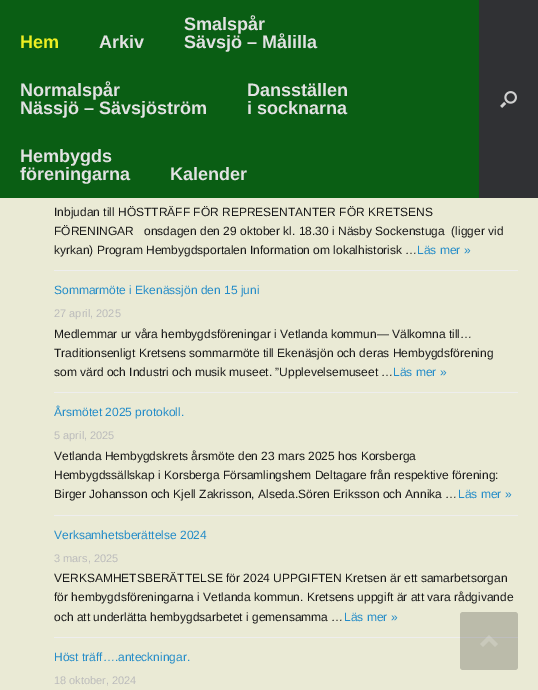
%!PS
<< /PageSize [538 690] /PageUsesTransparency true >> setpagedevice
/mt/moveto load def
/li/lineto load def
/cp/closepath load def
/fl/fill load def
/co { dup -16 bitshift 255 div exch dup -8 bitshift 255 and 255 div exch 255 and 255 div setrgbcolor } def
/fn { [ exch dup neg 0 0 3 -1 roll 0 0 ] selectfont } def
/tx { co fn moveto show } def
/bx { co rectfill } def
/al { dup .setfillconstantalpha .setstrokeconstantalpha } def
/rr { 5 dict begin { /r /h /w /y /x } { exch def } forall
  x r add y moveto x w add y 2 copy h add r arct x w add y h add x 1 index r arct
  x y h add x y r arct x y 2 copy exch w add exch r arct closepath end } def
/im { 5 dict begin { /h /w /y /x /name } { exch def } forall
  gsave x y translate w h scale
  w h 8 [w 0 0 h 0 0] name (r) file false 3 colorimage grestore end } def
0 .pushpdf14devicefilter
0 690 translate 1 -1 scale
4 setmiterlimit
0 0 538 690 16#EAEAD5 bx
0 0 479 198 16#0A5E14 bx
479 0 59 198 16#303134 bx
(media/1.raw) 500 91 17 17 im
54 270 464 1 16#EEEEEE bx
54 392 464 1 16#EEEEEE bx
54 515 464 1 16#EEEEEE bx
54 637 464 1 16#EEEEEE bx
0.2 al
16#000000 co
460 612 58 58 3 rr fl
16#FFFFFF co
498 644 mt 489 635 li 480 644 li 483 647 li 489 641 li 495 647 li cp fl
1 al
(Hem) 20 48 /LiberationSans-Bold 18 16#EEEE22 tx
(Arkiv) 99 48 /LiberationSans-Bold 18 16#E2E2E2 tx
(Smalspår) 184 30 /LiberationSans-Bold 18 16#E2E2E2 tx
(Sävsjö – Målilla) 184 48 /LiberationSans-Bold 18 16#E2E2E2 tx
(Normalspår) 20 96 /LiberationSans-Bold 18 16#E2E2E2 tx
(Nässjö – Sävsjöström) 20 114 /LiberationSans-Bold 18 16#E2E2E2 tx
(Dansställen) 247 96 /LiberationSans-Bold 18 16#E2E2E2 tx
(i socknarna) 247 114 /LiberationSans-Bold 18 16#E2E2E2 tx
(Hembygds) 20 162 /LiberationSans-Bold 18 16#E2E2E2 tx
(föreningarna) 20 180 /LiberationSans-Bold 18 16#E2E2E2 tx
(Kalender) 170 180 /LiberationSans-Bold 18 16#E2E2E2 tx
(Inbjudan till HÖSTTRÄFF FÖR REPRESENTANTER FÖR KRETSENS) 54 216 /LiberationSans-Regular 12 16#191919 tx
(FÖRENINGAR   onsdagen den 29 oktober kl. 18.30 i Näsby Sockenstuga  \(ligger vid) 54 235 /LiberationSans-Regular 12 16#191919 tx
(kyrkan\) Program Hembygdsportalen Information om lokalhistorisk …) 54 254 /LiberationSans-Regular 12 16#191919 tx
(Läs mer ») 417 254 /LiberationSans-Regular 12 16#248CC8 tx
(Sommarmöte i Ekenässjön den 15 juni) 54 294 /LiberationSans-Regular 12 16#248CC8 tx
(27 april, 2025) 54 317 /LiberationSans-Regular 11 16#BBBBBB tx
(Medlemmar ur våra hembygdsföreningar i Vetlanda kommun— Välkomna till…) 54 338 /LiberationSans-Regular 12 16#191919 tx
(Traditionsenligt Kretsens sommarmöte till Ekenäsjön och deras Hembygdsförening) 54 357 /LiberationSans-Regular 12 16#191919 tx
(som värd och Industri och musik museet. ”Upplevelsemuseet …) 54 376 /LiberationSans-Regular 12 16#191919 tx
(Läs mer ») 393 376 /LiberationSans-Regular 12 16#248CC8 tx
(Årsmötet 2025 protokoll.) 54 416 /LiberationSans-Regular 12 16#248CC8 tx
(5 april, 2025) 54 439 /LiberationSans-Regular 11 16#BBBBBB tx
(Vetlanda Hembygdskrets årsmöte den 23 mars 2025 hos Korsberga) 54 460 /LiberationSans-Regular 12 16#191919 tx
(Hembygdssällskap i Korsberga Församlingshem Deltagare från respektive förening:) 54 479 /LiberationSans-Regular 12 16#191919 tx
(Birger Johansson och Kjell Zakrisson, Alseda.Sören Eriksson och Annika …) 54 498 /LiberationSans-Regular 12 16#191919 tx
(Läs mer ») 458 498 /LiberationSans-Regular 12 16#248CC8 tx
(Verksamhetsberättelse 2024) 54 539 /LiberationSans-Regular 12 16#248CC8 tx
(3 mars, 2025) 54 562 /LiberationSans-Regular 11 16#BBBBBB tx
(VERKSAMHETSBERÄTTELSE för 2024 UPPGIFTEN Kretsen är ett samarbetsorgan) 54 582 /LiberationSans-Regular 12 16#191919 tx
(för hembygdsföreningarna i Vetlanda kommun. Kretsens uppgift är att vara rådgivande) 54 601 /LiberationSans-Regular 12 16#191919 tx
(och att underlätta hembygdsarbetet i gemensamma …) 54 621 /LiberationSans-Regular 12 16#191919 tx
(Läs mer ») 344 621 /LiberationSans-Regular 12 16#248CC8 tx
(Höst träff….anteckningar.) 54 661 /LiberationSans-Regular 12 16#248CC8 tx
(18 oktober, 2024) 54 684 /LiberationSans-Regular 11 16#BBBBBB tx
.poppdf14devicefilter showpage
